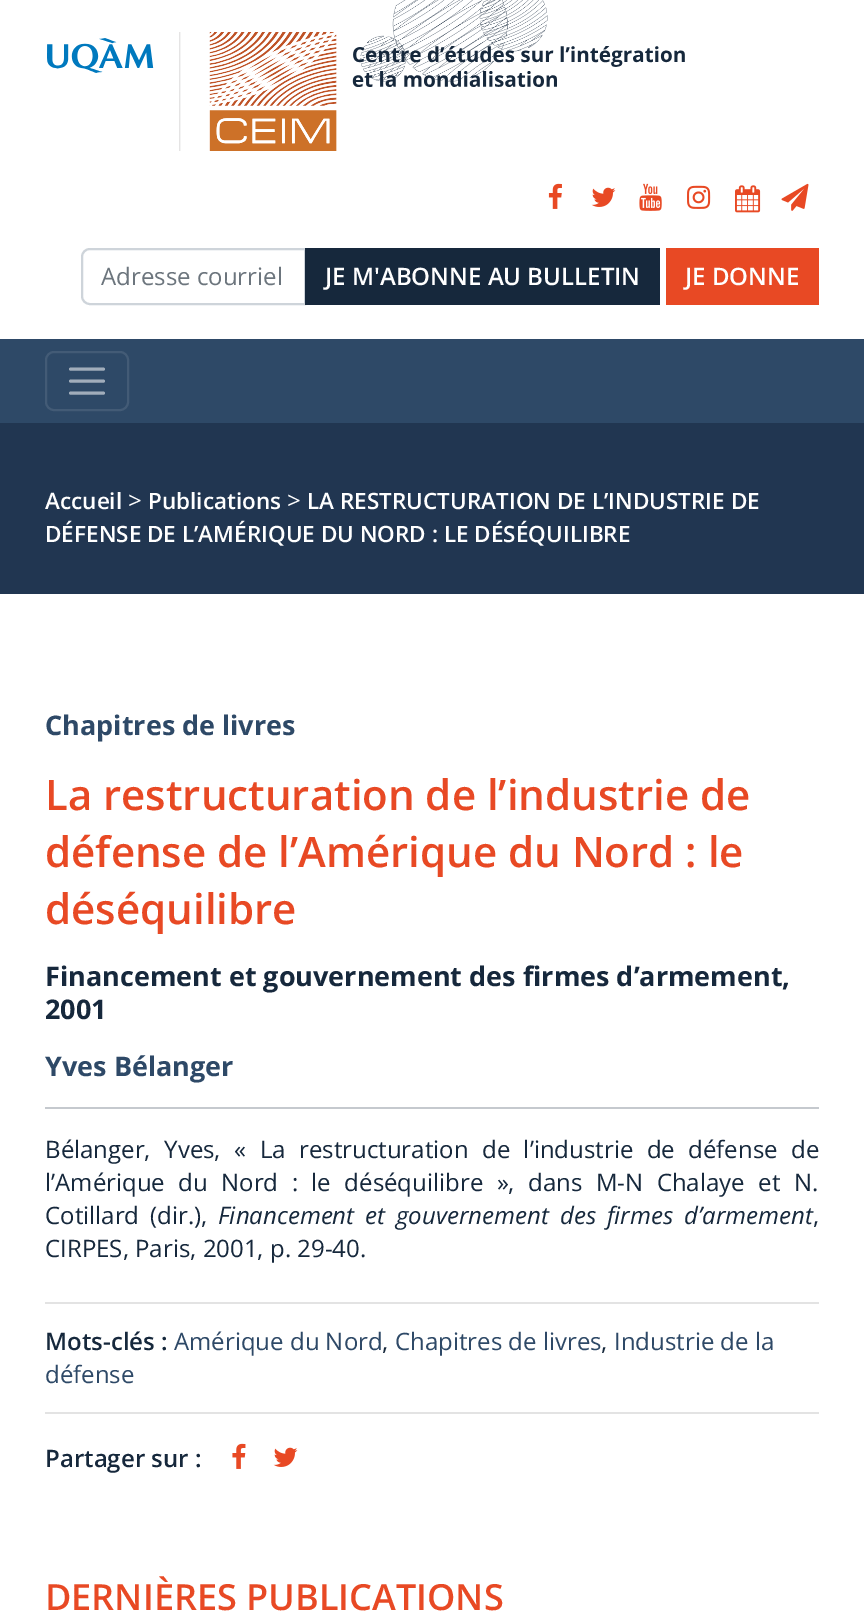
%!PS
<< /PageSize [864 1622] >> setpagedevice
/mt/moveto load def
/li/lineto load def
/ct/curveto load def
/cp/closepath load def
/st/stroke load def
/lw/setlinewidth load def
/co { dup -16 bitshift 255 div exch dup -8 bitshift 255 and 255 div exch 255 and 255 div setrgbcolor } def
/fn { [ exch dup neg 0 0 3 -1 roll 0 0 ] selectfont } def
/tx { co fn moveto show } def
/bx { co rectfill } def
/rr { 5 dict begin { /r /h /w /y /x } { exch def } forall
  x r add y moveto x w add y 2 copy h add r arct x w add y h add x 1 index r arct
  x y h add x y r arct x y 2 copy exch w add exch r arct closepath end } def
/im { 5 dict begin { /h /w /y /x /name } { exch def } forall
  gsave x y translate w h scale
  w h 8 [w 0 0 h 0 0] name (r) file false 3 colorimage grestore end } def
0 1622 translate 1 -1 scale
4 setmiterlimit
0 0 864 1622 16#FFFFFF bx
(media/1.raw) 360 0 188 82 im
(media/2.raw) 47 32 638 119 im
(media/3.raw) 548 183 14 26 im
(media/4.raw) 591 187 25 20 im
(media/5.raw) 639 183 23 28 im
(media/6.raw) 687 185 24 24 im
(media/7.raw) 735 185 26 28 im
(media/8.raw) 781 183 28 28 im
16#CED4DA co
2 lw
90 249 mt 305 249 li 305 304 li 90 304 li 85.5 304 82 300.5 82 296 ct 82 257 li 82 252.5 85.5 249 90 249 ct cp st
305 248 355 57 16#16283C bx
666 248 153 57 16#E84924 bx
0 339 864 84 16#2E4967 bx
16#435B76 co
46 352 82 58 8 rr st
16#A1ADBB co
3 lw
1 setlinecap
70.5 369 mt 103.5 369 li 70.5 381 mt 103.5 381 li 70.5 393 mt 103.5 393 li st
0 423 864 171 16#213651 bx
45 1107 774 2 16#C5C9CE bx
45 1302 774 2 16#E3E3E3 bx
45 1412 774 2 16#E3E3E3 bx
(media/9.raw) 232 1443 14 26 im
(media/4.raw) 273 1447 25 20 im
(Adresse courriel) 101 285 /OpenSans-Regular 24 16#6C757D tx
(JE M'ABONNE AU BULLETIN) 325 285 /OpenSans-SemiBold 24 16#FFFFFF tx
(JE DONNE) 685 285 /OpenSans-SemiBold 24 16#FFFFFF tx
(Accueil) 45 509 /OpenSans-SemiBold 22.5 16#FFFFFF tx
(>) 128 509 /OpenSans-Regular 24 16#FFFFFF tx
(Publications) 148 509 /OpenSans-SemiBold 22.5 16#FFFFFF tx
(>) 287 509 /OpenSans-Regular 24 16#FFFFFF tx
(LA RESTRUCTURATION DE L’INDUSTRIE DE) 307 509 /OpenSans-SemiBold 22.5 16#FFFFFF tx
(DÉFENSE DE L’AMÉRIQUE DU NORD : LE DÉSÉQUILIBRE) 45 542 /OpenSans-SemiBold 22.5 16#FFFFFF tx
(Chapitres de livres) 45 735 /OpenSans-Bold 27 16#2E4967 tx
(La restructuration de l’industrie de) 45 810 /OpenSans-SemiBold 42 16#E84924 tx
(défense de l’Amérique du Nord : le) 45 867 /OpenSans-SemiBold 42 16#E84924 tx
(déséquilibre) 45 924 /OpenSans-SemiBold 42 16#E84924 tx
(Financement et gouvernement des firmes d’armement,) 45 986 /OpenSans-Bold 27 16#16283C tx
(2001) 45 1019 /OpenSans-Bold 27 16#16283C tx
(Yves Bélanger) 45 1076 /OpenSans-Bold 27 16#2E4967 tx
/OpenSans-Regular 24 fn
16#16283C co
45 1158 mt 7.25 0 32 (Bélanger, Yves, « La restructuration de l’industrie de défense de) widthshow
45 1191 mt 7.25 0 32 (l’Amérique du Nord : le déséquilibre », dans M-N Chalaye et N.) widthshow
45 1224 mt 4.75 0 32 (Cotillard \(dir.\),) widthshow
/OpenSans-Italic 24 fn
218 1224 mt 4.75 0 32 (Financement et gouvernement des firmes d’armement) widthshow
(,) 813 1224 /OpenSans-Regular 24 16#16283C tx
(CIRPES, Paris, 2001, p. 29-40.) 45 1257 /OpenSans-Regular 24 16#16283C tx
(Mots-clés :) 45 1350 /OpenSans-SemiBold 24 16#16283C tx
(Amérique du Nord) 174 1350 /OpenSans-Regular 24 16#2E4967 tx
(,) 382 1350 /OpenSans-Regular 24 16#16283C tx
(Chapitres de livres) 395 1350 /OpenSans-Regular 24 16#2E4967 tx
(,) 601 1350 /OpenSans-Regular 24 16#16283C tx
(Industrie de la) 614 1350 /OpenSans-Regular 24 16#2E4967 tx
(défense) 45 1383 /OpenSans-Regular 24 16#2E4967 tx
(Partager sur :) 45 1467 /OpenSans-SemiBold 24 16#16283C tx
(DERNIÈRES PUBLICATIONS) 45 1610 /OpenSans-SemiBold 36 16#E84924 tx
showpage
